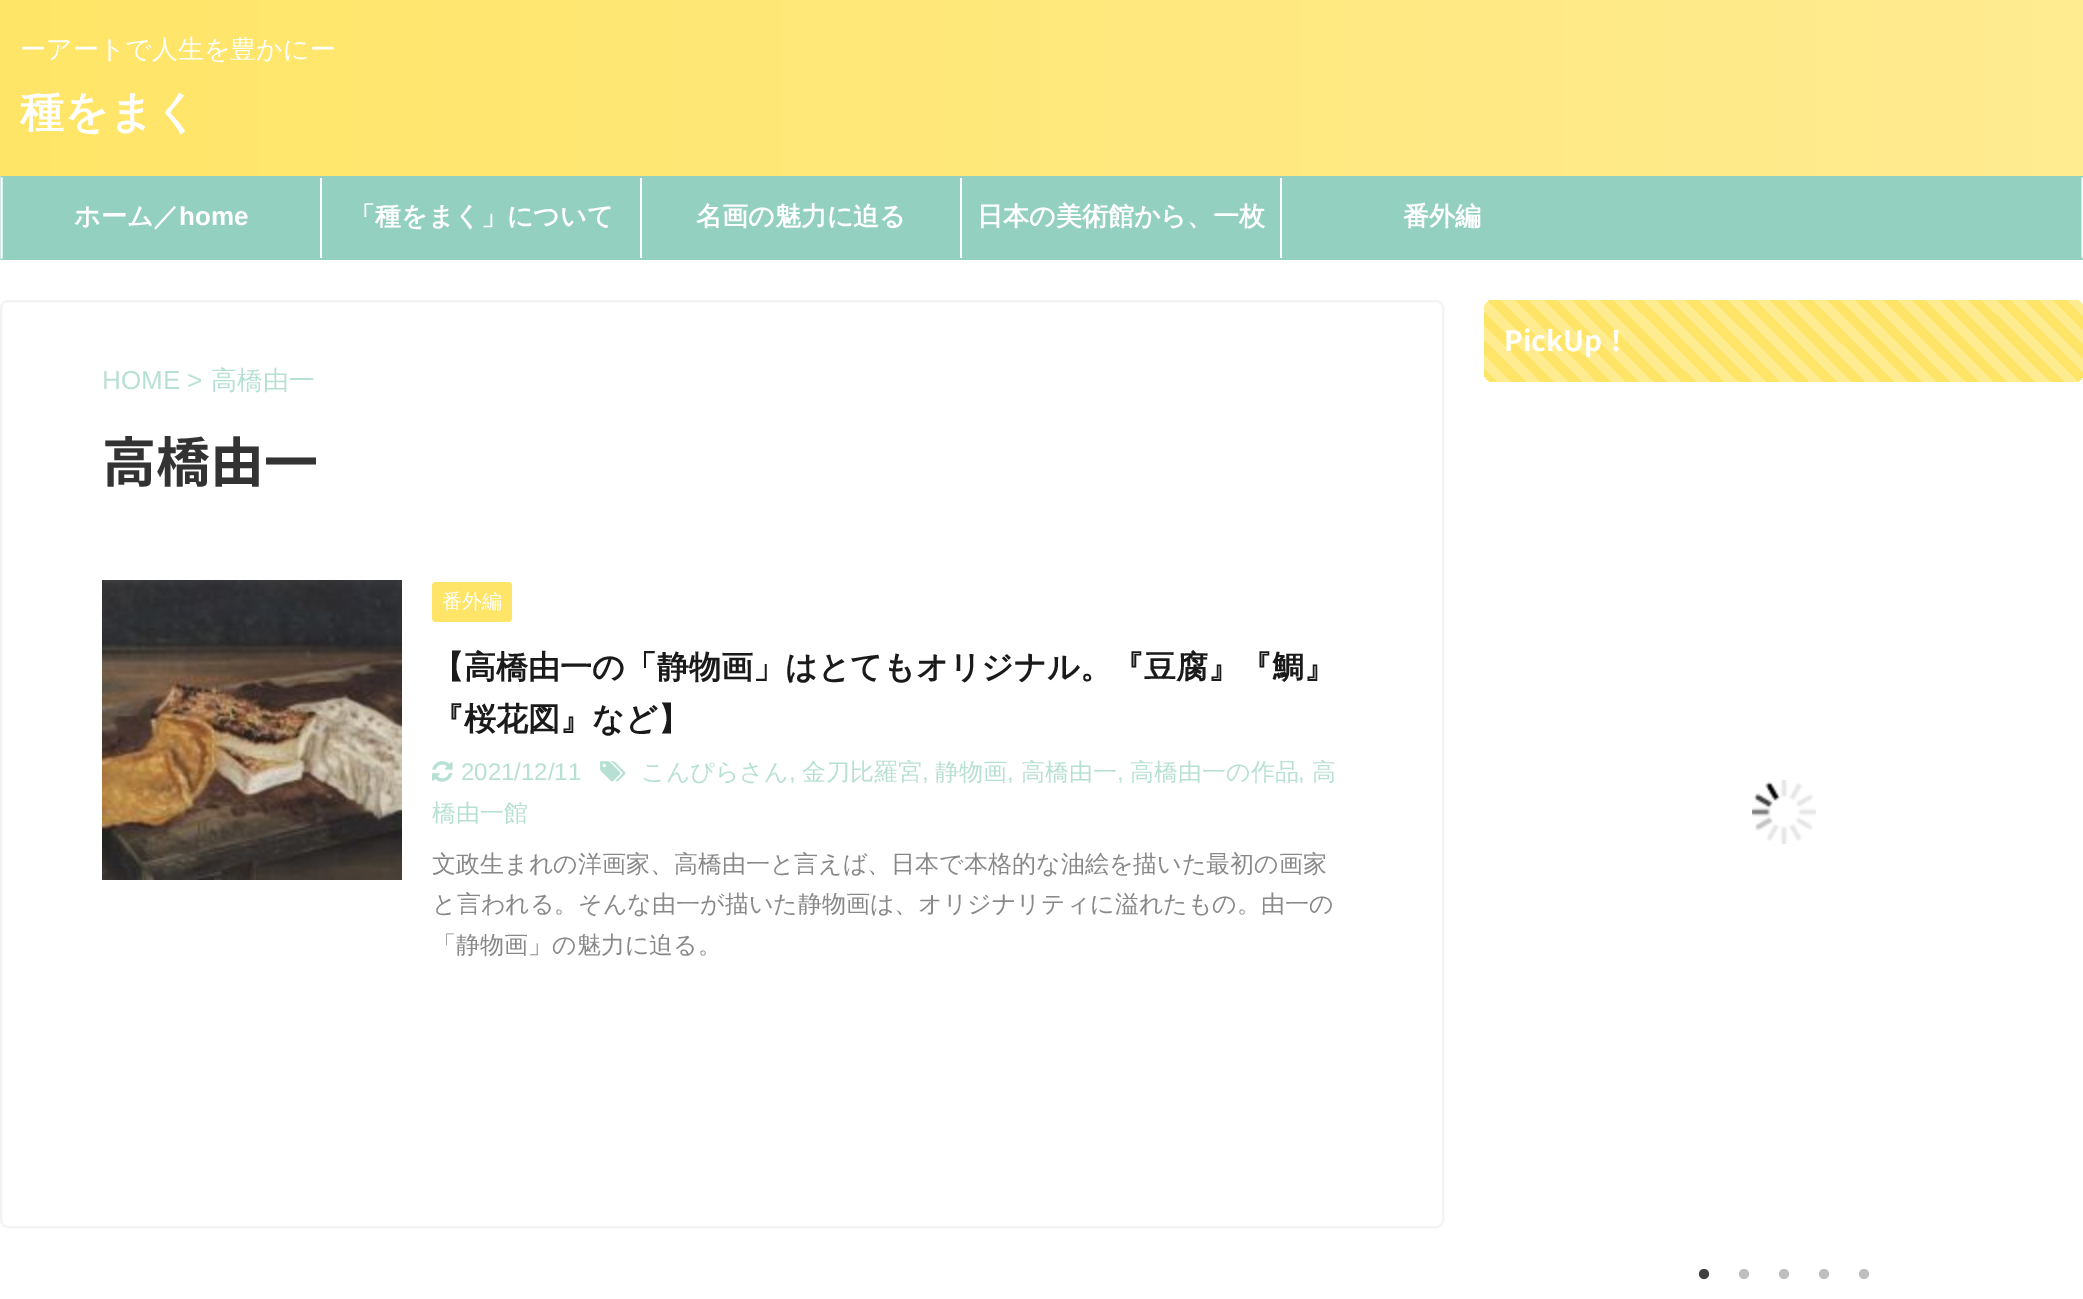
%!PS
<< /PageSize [2083 1299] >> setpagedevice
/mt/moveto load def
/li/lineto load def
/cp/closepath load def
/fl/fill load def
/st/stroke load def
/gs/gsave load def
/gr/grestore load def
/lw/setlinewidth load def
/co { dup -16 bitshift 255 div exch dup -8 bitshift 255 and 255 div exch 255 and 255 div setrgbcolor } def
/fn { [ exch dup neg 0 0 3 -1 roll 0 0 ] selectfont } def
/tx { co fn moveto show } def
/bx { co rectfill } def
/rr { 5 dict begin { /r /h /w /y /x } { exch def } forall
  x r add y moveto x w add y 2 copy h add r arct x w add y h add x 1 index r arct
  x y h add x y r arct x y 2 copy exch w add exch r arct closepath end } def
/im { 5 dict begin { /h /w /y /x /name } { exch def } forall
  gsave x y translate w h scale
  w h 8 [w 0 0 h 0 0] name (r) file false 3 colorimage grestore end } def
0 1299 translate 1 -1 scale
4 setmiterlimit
0 0 2083 1299 16#FFFFFF bx
gs 0 0 mt 2083 0 li 2083 176 li 0 176 li cp clip newpath
<< /ShadingType 2 /ColorSpace /DeviceRGB /Coords [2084 88 0 88] /Extend [true true] /Function << /FunctionType 2 /Domain [0 1] /C0 [1 .925 .569] /C1 [1 .898 .404] /N 1 >> >> shfill gr
16#94D0BF co
0 176 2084 84 2 rr fl
2 lw
1.5 177.5 mt 2082.5 177.5 li st
16#FFFFFF co
2082.5 177.5 mt 2082.5 258.5 li st
16#94D0BF co
2082.5 258.5 mt 1.5 258.5 li st
16#FFFFFF co
1.5 258.5 mt 1.5 177.5 li st
320 178 2 80 16#FFFFFF bx
640 178 2 80 16#FFFFFF bx
960 178 2 80 16#FFFFFF bx
1280 178 2 80 16#FFFFFF bx
gs 1484 300 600 82 10 rr clip newpath
<< /ShadingType 2 /ColorSpace /DeviceRGB /Coords [1614 512 1967 158] /Extend [true true] /Function << /FunctionType 3 /Domain [0 1] /Functions [<< /FunctionType 2 /Domain [0 1] /C0 [1 .898 .404] /C1 [1 .898 .404] /N 1 >> << /FunctionType 2 /Domain [0 1] /C0 [1 .925 .569] /C1 [1 .925 .569] /N 1 >> << /FunctionType 2 /Domain [0 1] /C0 [1 .898 .404] /C1 [1 .898 .404] /N 1 >> << /FunctionType 2 /Domain [0 1] /C0 [1 .925 .569] /C1 [1 .925 .569] /N 1 >> << /FunctionType 2 /Domain [0 1] /C0 [1 .898 .404] /C1 [1 .898 .404] /N 1 >> << /FunctionType 2 /Domain [0 1] /C0 [1 .925 .569] /C1 [1 .925 .569] /N 1 >> << /FunctionType 2 /Domain [0 1] /C0 [1 .898 .404] /C1 [1 .898 .404] /N 1 >> << /FunctionType 2 /Domain [0 1] /C0 [1 .925 .569] /C1 [1 .925 .569] /N 1 >> << /FunctionType 2 /Domain [0 1] /C0 [1 .898 .404] /C1 [1 .898 .404] /N 1 >> << /FunctionType 2 /Domain [0 1] /C0 [1 .925 .569] /C1 [1 .925 .569] /N 1 >> << /FunctionType 2 /Domain [0 1] /C0 [1 .898 .404] /C1 [1 .898 .404] /N 1 >> << /FunctionType 2 /Domain [0 1] /C0 [1 .925 .569] /C1 [1 .925 .569] /N 1 >> << /FunctionType 2 /Domain [0 1] /C0 [1 .898 .404] /C1 [1 .898 .404] /N 1 >> << /FunctionType 2 /Domain [0 1] /C0 [1 .925 .569] /C1 [1 .925 .569] /N 1 >> << /FunctionType 2 /Domain [0 1] /C0 [1 .898 .404] /C1 [1 .898 .404] /N 1 >> << /FunctionType 2 /Domain [0 1] /C0 [1 .925 .569] /C1 [1 .925 .569] /N 1 >> << /FunctionType 2 /Domain [0 1] /C0 [1 .898 .404] /C1 [1 .898 .404] /N 1 >> << /FunctionType 2 /Domain [0 1] /C0 [1 .925 .569] /C1 [1 .925 .569] /N 1 >> << /FunctionType 2 /Domain [0 1] /C0 [1 .898 .404] /C1 [1 .898 .404] /N 1 >> << /FunctionType 2 /Domain [0 1] /C0 [1 .925 .569] /C1 [1 .925 .569] /N 1 >> << /FunctionType 2 /Domain [0 1] /C0 [1 .898 .404] /C1 [1 .898 .404] /N 1 >> << /FunctionType 2 /Domain [0 1] /C0 [1 .925 .569] /C1 [1 .925 .569] /N 1 >> << /FunctionType 2 /Domain [0 1] /C0 [1 .898 .404] /C1 [1 .898 .404] /N 1 >> << /FunctionType 2 /Domain [0 1] /C0 [1 .925 .569] /C1 [1 .925 .569] /N 1 >> << /FunctionType 2 /Domain [0 1] /C0 [1 .898 .404] /C1 [1 .898 .404] /N 1 >> << /FunctionType 2 /Domain [0 1] /C0 [1 .925 .569] /C1 [1 .925 .569] /N 1 >> << /FunctionType 2 /Domain [0 1] /C0 [1 .898 .404] /C1 [1 .898 .404] /N 1 >> << /FunctionType 2 /Domain [0 1] /C0 [1 .925 .569] /C1 [1 .925 .569] /N 1 >> << /FunctionType 2 /Domain [0 1] /C0 [1 .898 .404] /C1 [1 .898 .404] /N 1 >> << /FunctionType 2 /Domain [0 1] /C0 [1 .925 .569] /C1 [1 .925 .569] /N 1 >> << /FunctionType 2 /Domain [0 1] /C0 [1 .898 .404] /C1 [1 .898 .404] /N 1 >> << /FunctionType 2 /Domain [0 1] /C0 [1 .925 .569] /C1 [1 .925 .569] /N 1 >> << /FunctionType 2 /Domain [0 1] /C0 [1 .898 .404] /C1 [1 .898 .404] /N 1 >> << /FunctionType 2 /Domain [0 1] /C0 [1 .925 .569] /C1 [1 .925 .569] /N 1 >> << /FunctionType 2 /Domain [0 1] /C0 [1 .898 .404] /C1 [1 .898 .404] /N 1 >> << /FunctionType 2 /Domain [0 1] /C0 [1 .925 .569] /C1 [1 .925 .569] /N 1 >> << /FunctionType 2 /Domain [0 1] /C0 [1 .898 .404] /C1 [1 .898 .404] /N 1 >> << /FunctionType 2 /Domain [0 1] /C0 [1 .925 .569] /C1 [1 .925 .569] /N 1 >> << /FunctionType 2 /Domain [0 1] /C0 [1 .898 .404] /C1 [1 .898 .404] /N 1 >> << /FunctionType 2 /Domain [0 1] /C0 [1 .925 .569] /C1 [1 .925 .569] /N 1 >> << /FunctionType 2 /Domain [0 1] /C0 [1 .898 .404] /C1 [1 .898 .404] /N 1 >> << /FunctionType 2 /Domain [0 1] /C0 [1 .925 .569] /C1 [1 .925 .569] /N 1 >> << /FunctionType 2 /Domain [0 1] /C0 [1 .898 .404] /C1 [1 .898 .404] /N 1 >> << /FunctionType 2 /Domain [0 1] /C0 [1 .925 .569] /C1 [1 .925 .569] /N 1 >> << /FunctionType 2 /Domain [0 1] /C0 [1 .898 .404] /C1 [1 .898 .404] /N 1 >> << /FunctionType 2 /Domain [0 1] /C0 [1 .925 .569] /C1 [1 .925 .569] /N 1 >> << /FunctionType 2 /Domain [0 1] /C0 [1 .898 .404] /C1 [1 .898 .404] /N 1 >> << /FunctionType 2 /Domain [0 1] /C0 [1 .925 .569] /C1 [1 .925 .569] /N 1 >> << /FunctionType 2 /Domain [0 1] /C0 [1 .898 .404] /C1 [1 .898 .404] /N 1 >> << /FunctionType 2 /Domain [0 1] /C0 [1 .925 .569] /C1 [1 .925 .569] /N 1 >>] /Bounds [.02 .04 .06 .08 .1 .12 .14 .16 .18 .2 .22 .24 .26 .28 .3 .32 .34 .36 .38 .4 .42 .44 .46 .48 .5 .52 .54 .56 .58 .6 .62 .64 .66 .68 .7 .72 .74 .76 .78 .8 .82 .84 .86 .88 .9 .92 .94 .96 .98] /Encode [0 1 0 1 0 1 0 1 0 1 0 1 0 1 0 1 0 1 0 1 0 1 0 1 0 1 0 1 0 1 0 1 0 1 0 1 0 1 0 1 0 1 0 1 0 1 0 1 0 1 0 1 0 1 0 1 0 1 0 1 0 1 0 1 0 1 0 1 0 1 0 1 0 1 0 1 0 1 0 1 0 1 0 1 0 1 0 1 0 1 0 1 0 1 0 1 0 1 0 1] >> >> shfill gr
(media/1.raw) 1752 780 64 64 im
(media/2.raw) 1698 1268 12 12 im
(media/3.raw) 1739 1269 10 10 im
(media/3.raw) 1779 1269 10 10 im
(media/3.raw) 1819 1269 10 10 im
(media/3.raw) 1859 1269 10 10 im
16#F3F3F3 co
1 301 1442 926 7 rr st
(media/4.raw) 102 580 300 300 im
16#FFE567 co
432 582 80 40 4 rr fl
(media/5.raw) 600 761 26 21 im
(media/6.raw) 432 761 21 21 im
(ーアートで人生を豊かにー) 20 58 /WenQuanYiZenHei-Medium 26 16#FFFFFF tx
(種をまく) 20 127 /WenQuanYiZenHei-Bold 44 16#FFFFFF tx
(ホーム／) 74 225 /WenQuanYiZenHei-Bold 26 16#FFFFFF tx
(home) 179 225 /LiberationSans-Bold 26 16#FFFFFF tx
(「種をまく」について) 349 225 /WenQuanYiZenHei-Bold 26 16#FFFFFF tx
(名画の魅力に迫る) 696 225 /WenQuanYiZenHei-Bold 26 16#FFFFFF tx
(日本の美術館から、一枚) 977 225 /WenQuanYiZenHei-Bold 26 16#FFFFFF tx
(番外編) 1403 225 /WenQuanYiZenHei-Bold 26 16#FFFFFF tx
(PickUp！) 1504 351 /NotoSansJP-Bold 28 16#FFFFFF tx
(HOME >) 102 389 /LiberationSans-Regular 26 16#B7E0D4 tx
(高橋由一) 211 389 /WenQuanYiZenHei-Medium 26 16#B7E0D4 tx
(高橋由一) 102 482 /NotoSansJP-Bold 54 16#333333 tx
(番外編) 442 608 /WenQuanYiZenHei-Medium 20 16#FFFFFF tx
(【高橋由一の「静物画」はとてもオリジナル。『豆腐』『鯛』) 432 678 /WenQuanYiZenHei-Bold 32 16#1A1A1A tx
(『桜花図』など】) 432 730 /WenQuanYiZenHei-Bold 32 16#1A1A1A tx
(こんぴらさん) 641 780 /WenQuanYiZenHei-Medium 24 16#B7E0D4 tx
(,) 789 780 /LiberationSans-Regular 24 16#B7E0D4 tx
(金刀比羅宮) 802 780 /WenQuanYiZenHei-Medium 24 16#B7E0D4 tx
(,) 922 780 /LiberationSans-Regular 24 16#B7E0D4 tx
(静物画) 935 780 /WenQuanYiZenHei-Medium 24 16#B7E0D4 tx
(,) 1007 780 /LiberationSans-Regular 24 16#B7E0D4 tx
(高橋由一) 1021 780 /WenQuanYiZenHei-Medium 24 16#B7E0D4 tx
(,) 1117 780 /LiberationSans-Regular 24 16#B7E0D4 tx
(高橋由一の作品) 1130 780 /WenQuanYiZenHei-Medium 24 16#B7E0D4 tx
(,) 1298 780 /LiberationSans-Regular 24 16#B7E0D4 tx
(高) 1312 780 /WenQuanYiZenHei-Medium 24 16#B7E0D4 tx
(橋由一館) 432 821 /WenQuanYiZenHei-Medium 24 16#B7E0D4 tx
(2021/12/11) 461 780 /LiberationSans-Regular 24 16#B7E0D4 tx
(文政生まれの洋画家、高橋由一と言えば、日本で本格的な油絵を描いた最初の画家) 432 872 /WenQuanYiZenHei-Medium 24 16#888888 tx
(と言われる。そんな由一が描いた静物画は、オリジナリティに溢れたもの。由一の) 432 912 /WenQuanYiZenHei-Medium 24 16#888888 tx
(「静物画」の魅力に迫る。) 432 953 /WenQuanYiZenHei-Medium 24 16#888888 tx
showpage
